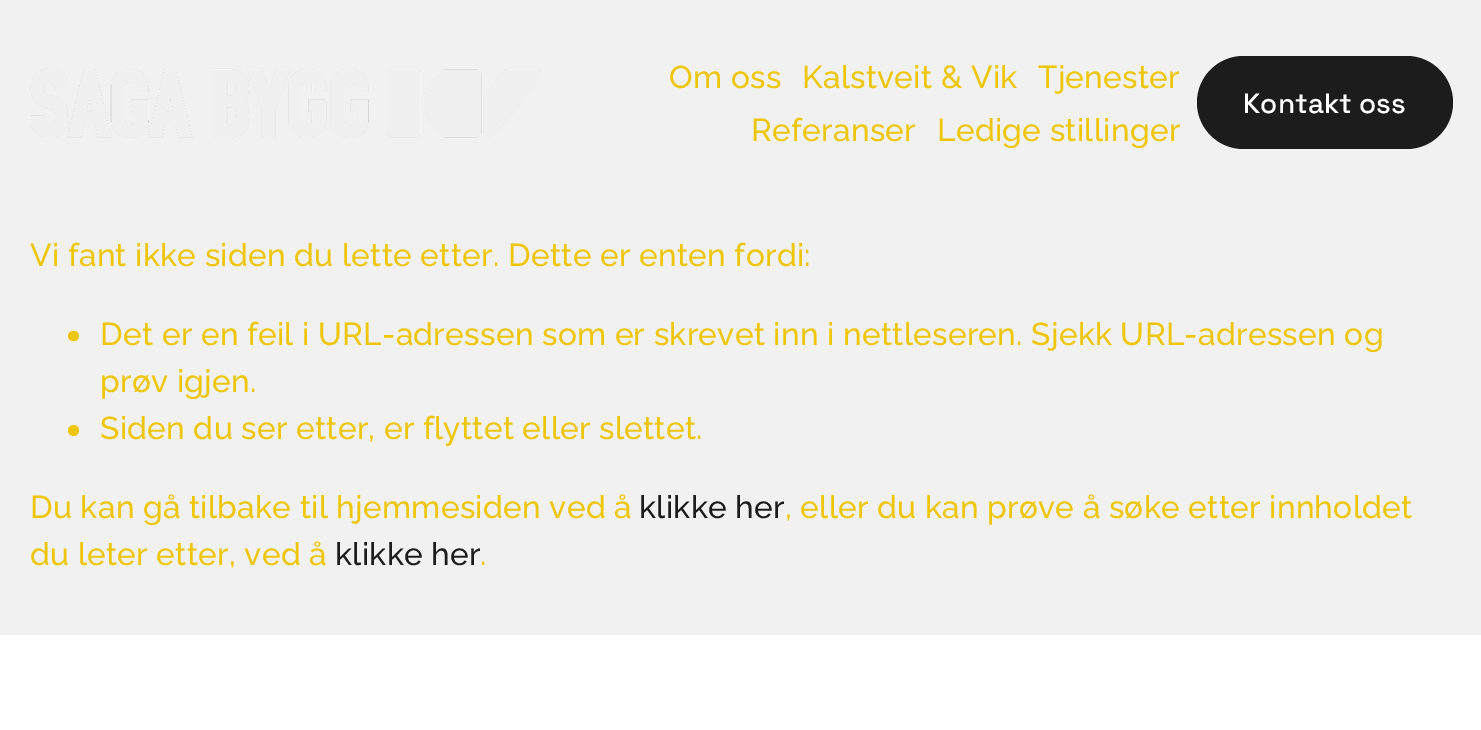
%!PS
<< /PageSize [1481 730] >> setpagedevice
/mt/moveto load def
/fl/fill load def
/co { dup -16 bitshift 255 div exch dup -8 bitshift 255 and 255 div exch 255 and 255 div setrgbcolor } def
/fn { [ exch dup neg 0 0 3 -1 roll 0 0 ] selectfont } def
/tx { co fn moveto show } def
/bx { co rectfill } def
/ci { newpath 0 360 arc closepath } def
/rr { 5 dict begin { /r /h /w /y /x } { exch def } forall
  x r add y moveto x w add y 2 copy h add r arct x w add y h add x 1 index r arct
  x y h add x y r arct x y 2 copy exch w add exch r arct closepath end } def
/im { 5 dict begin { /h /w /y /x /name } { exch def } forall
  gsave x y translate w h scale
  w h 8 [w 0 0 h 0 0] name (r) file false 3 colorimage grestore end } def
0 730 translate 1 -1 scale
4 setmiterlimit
0 0 1481 730 16#F1F1F1 bx
(media/1.raw) 30 68 511 70 im
16#1C1C1C co
1197 56 256 93 46.5 rr fl
16#EFC607 co
68 331 11 10 5 rr fl
73.5 430.5 5.5 ci fl
0 635 1481 95 16#FFFFFF bx
/Raleway-Medium 31.55 fn
16#EFC607 co
669 88 mt .32 0 (Om oss) ashow
802 88 mt .32 0 (Kalstveit & Vik) ashow
1038 88 mt .32 0 (Tjenester) ashow
751 141 mt .32 0 (Referanser) ashow
937 141 mt .32 0 (Ledige stillinger) ashow
(Kontakt oss) 1243 113 /SpaceGrotesk-Medium 28 16#FFFFFF tx
/Raleway-Medium 31.55 fn
16#EFC607 co
30 266 mt .32 0 (Vi fant ikke siden du lette etter. Dette er enten fordi:) ashow
100 345 mt .32 0 (Det er en feil i URL-adressen som er skrevet inn i nettleseren. Sjekk URL-adressen og) ashow
100 392 mt .32 0 (prøv igjen.) ashow
100 439 mt .32 0 (Siden du ser etter, er flyttet eller slettet.) ashow
30 518 mt .32 0 (Du kan gå tilbake til hjemmesiden ved å) ashow
16#1C1C1C co
639 518 mt .32 0 (klikke her) ashow
16#EFC607 co
785 518 mt .32 0 (, eller du kan prøve å søke etter) ashow
1269 518 mt .32 0 (innholdet) ashow
30 565 mt .32 0 (du leter etter, ved å) ashow
16#1C1C1C co
335 565 mt .32 0 (klikke her) ashow
16#EFC607 co
480 565 mt .32 0 (.) ashow
showpage
